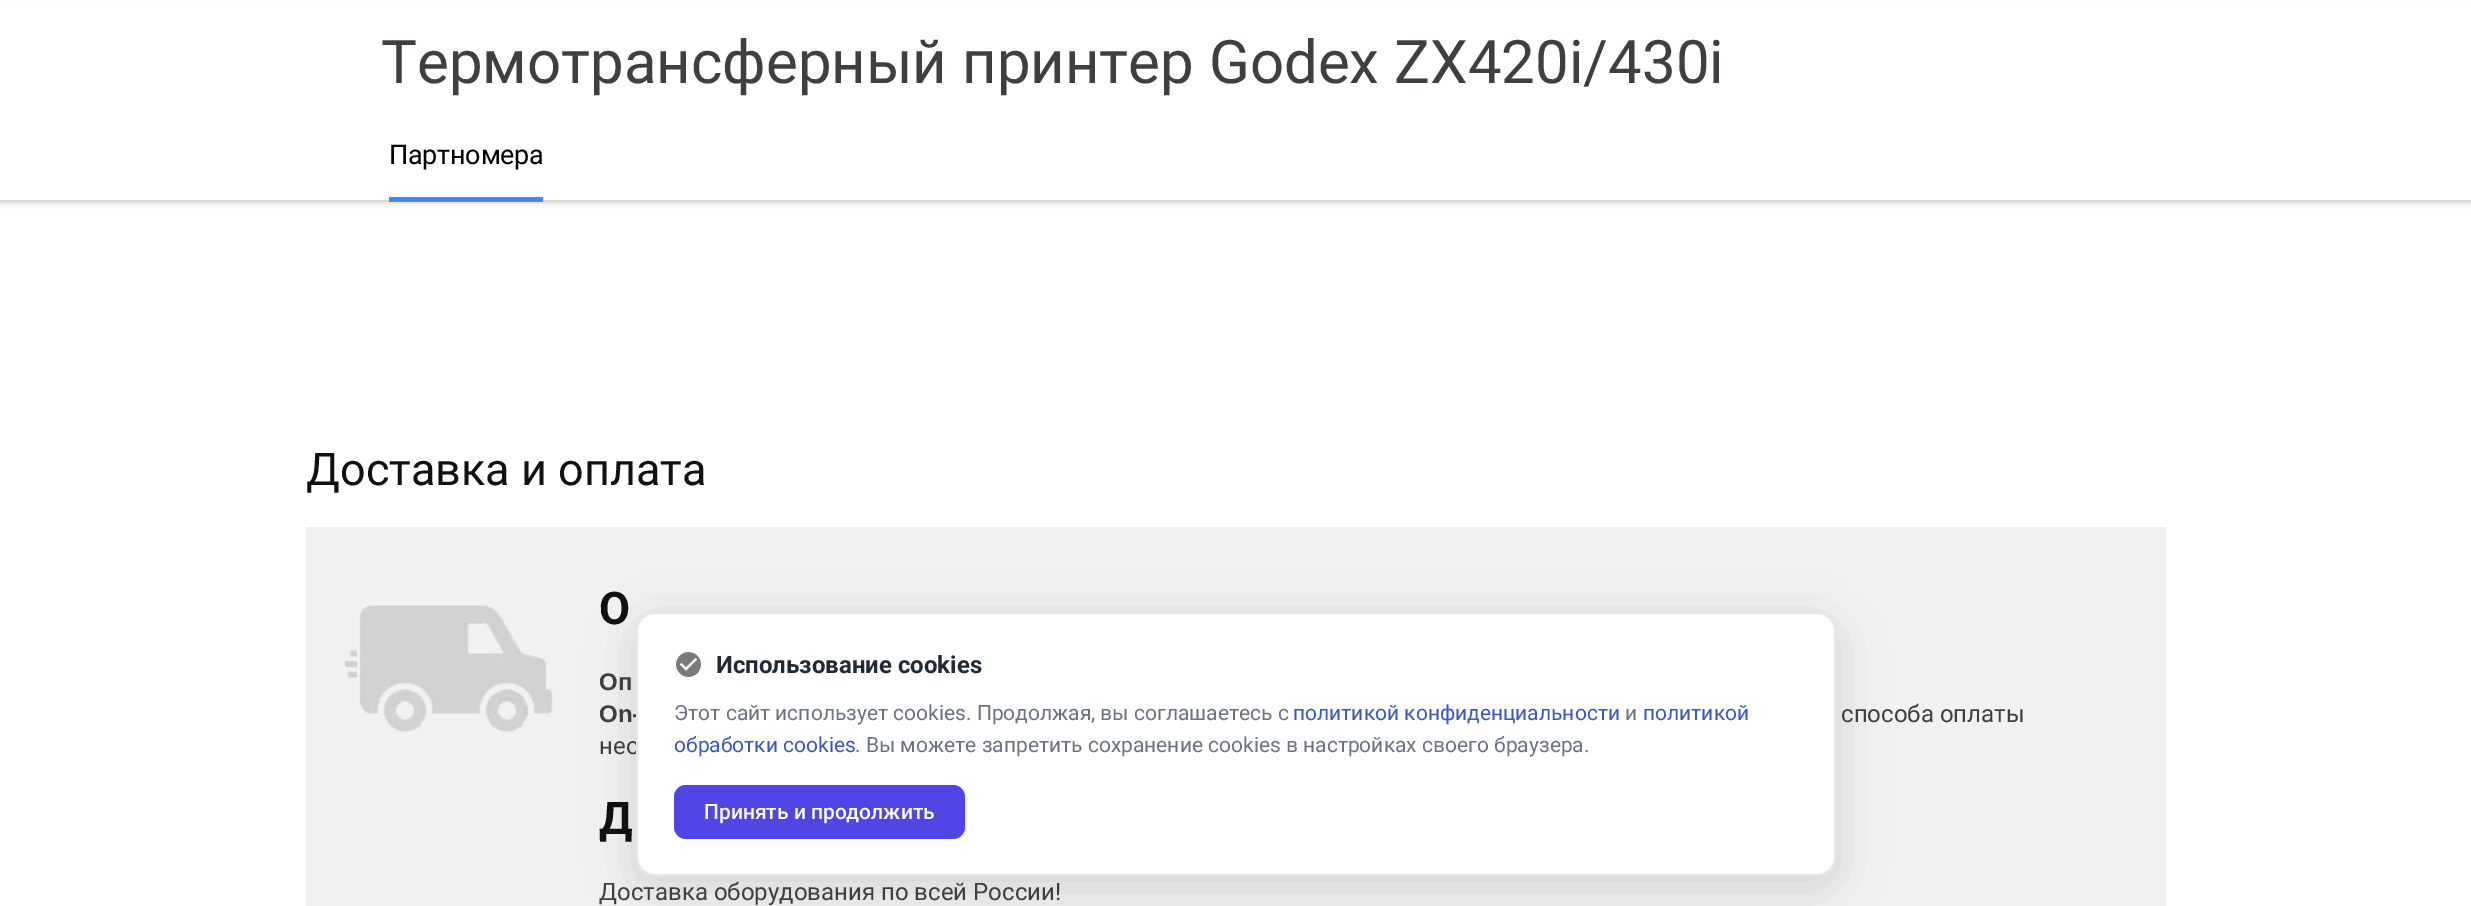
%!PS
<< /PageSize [2471 906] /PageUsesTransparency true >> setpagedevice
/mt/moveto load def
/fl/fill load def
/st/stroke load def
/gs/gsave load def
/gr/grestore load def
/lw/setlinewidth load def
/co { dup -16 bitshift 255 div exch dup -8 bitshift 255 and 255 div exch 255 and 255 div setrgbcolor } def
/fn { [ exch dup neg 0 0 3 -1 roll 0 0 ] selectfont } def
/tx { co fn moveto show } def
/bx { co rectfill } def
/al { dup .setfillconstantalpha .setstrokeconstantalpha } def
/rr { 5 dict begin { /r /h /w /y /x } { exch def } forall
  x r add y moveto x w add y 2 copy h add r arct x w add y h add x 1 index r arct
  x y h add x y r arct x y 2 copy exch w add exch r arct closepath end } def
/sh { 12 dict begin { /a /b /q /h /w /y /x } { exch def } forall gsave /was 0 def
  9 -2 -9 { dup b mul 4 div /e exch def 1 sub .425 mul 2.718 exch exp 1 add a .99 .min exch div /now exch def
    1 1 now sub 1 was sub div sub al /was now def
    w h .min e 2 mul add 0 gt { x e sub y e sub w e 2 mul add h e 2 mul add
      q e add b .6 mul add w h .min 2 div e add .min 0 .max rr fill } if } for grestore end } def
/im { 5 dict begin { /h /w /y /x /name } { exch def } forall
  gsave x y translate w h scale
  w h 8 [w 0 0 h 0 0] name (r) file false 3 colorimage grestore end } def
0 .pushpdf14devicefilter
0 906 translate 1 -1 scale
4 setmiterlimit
0 0 2471 906 16#FFFFFF bx
16#000000 co
-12 14 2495 187 0 4 .3 sh
0 7 2471 193 16#FFFFFF bx
389 197 154 5 16#3F88F7 bx
306 527 1860 379 16#F0F1F1 bx
(media/1.raw) 345 605 208 127 im
16#000000 co
636 624 1200 264 18 24 .12 sh
(Термотрансферный принтер Godex ZX420i/430i) 381 83 /Roboto-Regular 60 16#403E3E tx
/Roboto-Regular 27 fn
16#000000 co
389 164 mt -.25 0 (Партномера) ashow
(Доставка и оплата) 306 485 /Roboto-Regular 45 16#111111 tx
(О) 599 624 /Roboto-Bold 45 16#111111 tx
(Оп) 599 690 /LiberationSans-Bold 24 16#403E3E tx
(On-) 599 722 /LiberationSans-Bold 24 16#403E3E tx
(способа оплаты) 1841 722 /Roboto-Regular 24 16#403E3E tx
(нео) 599 754 /Roboto-Regular 24 16#403E3E tx
(Д) 599 834 /Roboto-Bold 45 16#111111 tx
(Доставка оборудования по всей России!) 599 900 /Roboto-Regular 24 16#403E3E tx
16#FFFFFF co
637 613 1198 262 17 rr gs fl gr
16#E5E7EB co
2 lw
st
(media/2.raw) 676 652 25 25 im
(Использование cookies) 716 673 /Roboto-Bold 24 16#1F2937 tx
(Этот сайт использует cookies. Продолжая, вы соглашаетесь с) 674 720 /Roboto-Regular 21 16#6B7280 tx
(политикой конфиденциальности) 1293 720 /Roboto-Regular 21 16#3858C9 tx
(и) 1625 720 /Roboto-Regular 21 16#6B7280 tx
(политикой) 1643 720 /Roboto-Regular 21 16#3858C9 tx
(обработки cookies) 674 752 /Roboto-Regular 21 16#3858C9 tx
(. Вы можете запретить сохранение cookies в настройках своего браузера.) 855 752 /Roboto-Regular 21 16#6B7280 tx
16#4F46E5 co
674 785 291 54 12 rr fl
(Принять и продолжить) 704 819 /Roboto-Medium 21 16#FFFFFF tx
.poppdf14devicefilter showpage
